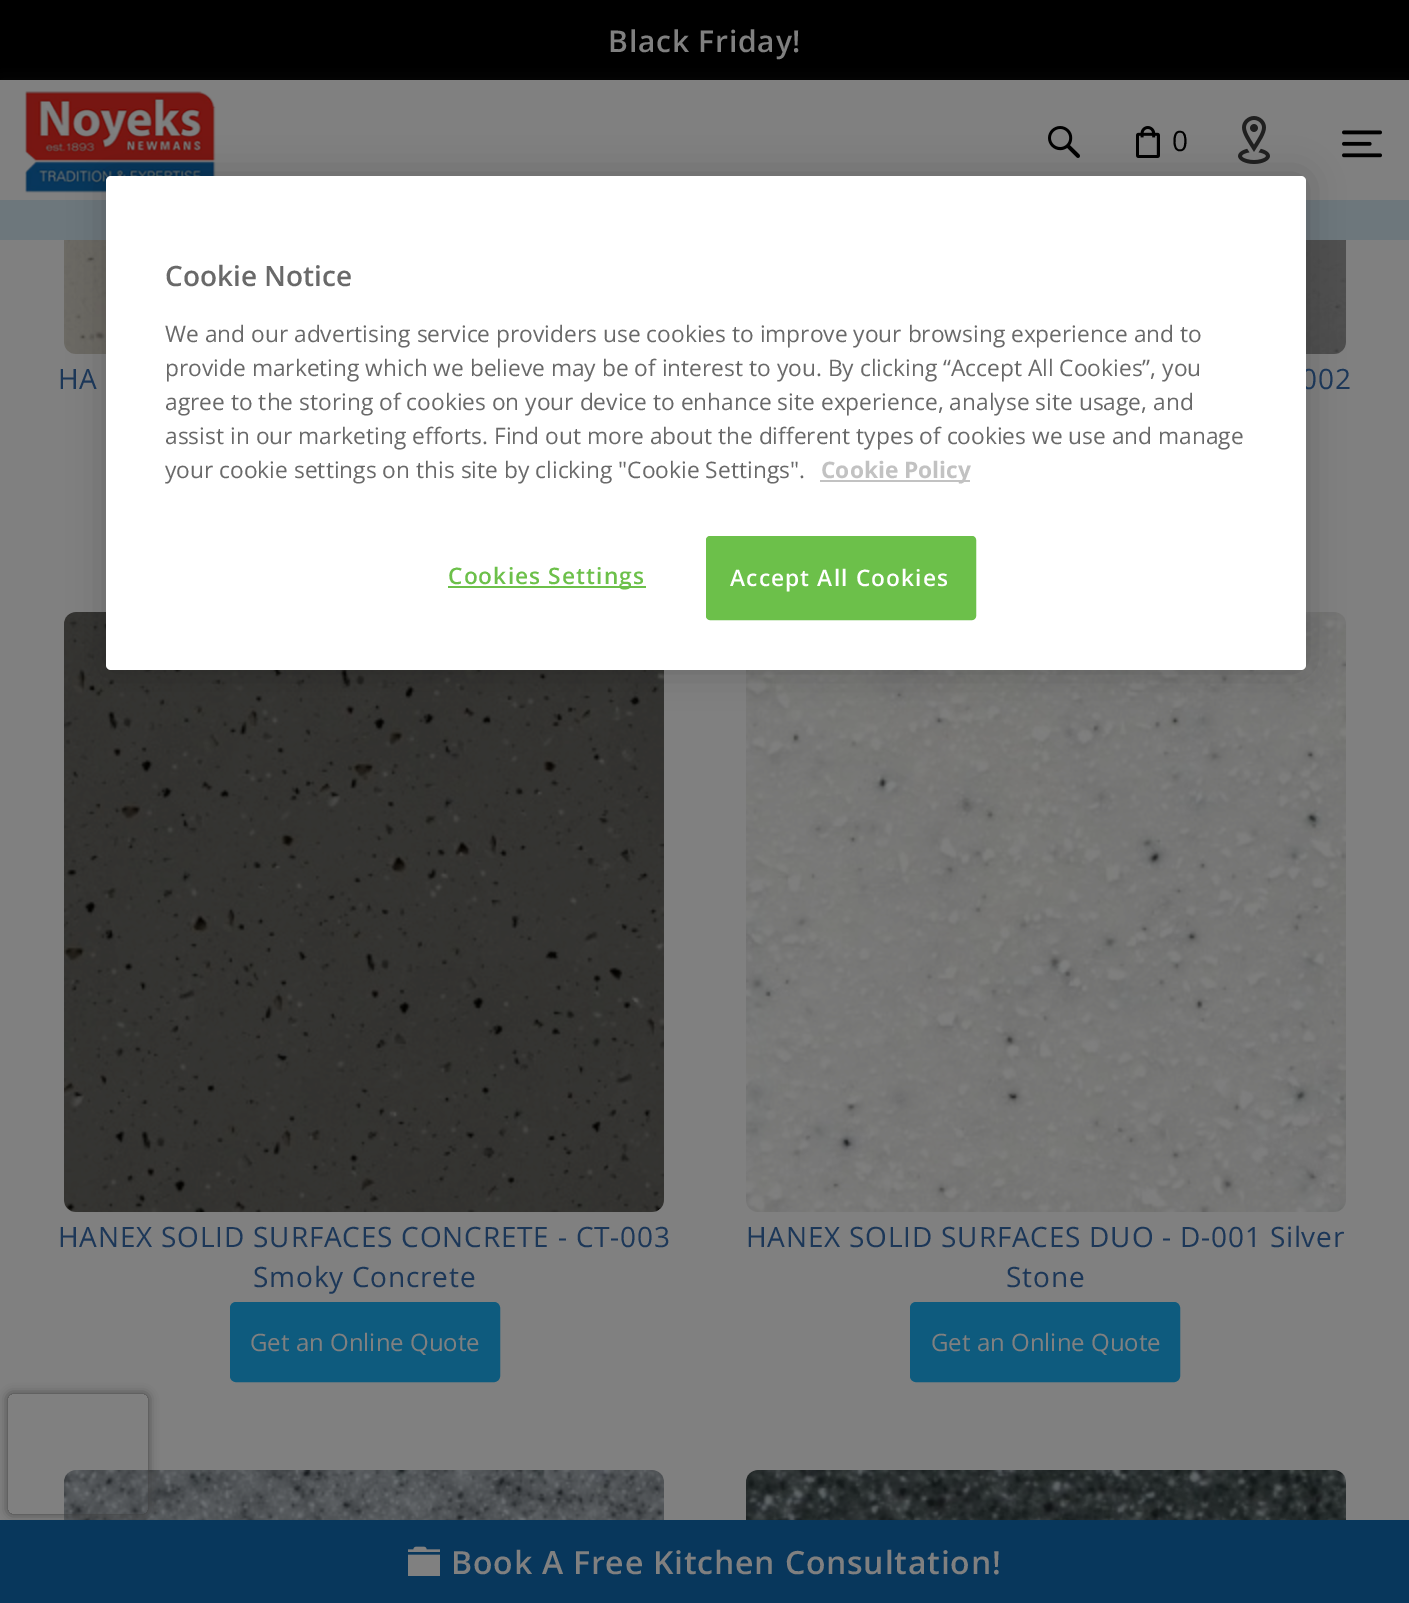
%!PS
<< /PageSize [1409 1603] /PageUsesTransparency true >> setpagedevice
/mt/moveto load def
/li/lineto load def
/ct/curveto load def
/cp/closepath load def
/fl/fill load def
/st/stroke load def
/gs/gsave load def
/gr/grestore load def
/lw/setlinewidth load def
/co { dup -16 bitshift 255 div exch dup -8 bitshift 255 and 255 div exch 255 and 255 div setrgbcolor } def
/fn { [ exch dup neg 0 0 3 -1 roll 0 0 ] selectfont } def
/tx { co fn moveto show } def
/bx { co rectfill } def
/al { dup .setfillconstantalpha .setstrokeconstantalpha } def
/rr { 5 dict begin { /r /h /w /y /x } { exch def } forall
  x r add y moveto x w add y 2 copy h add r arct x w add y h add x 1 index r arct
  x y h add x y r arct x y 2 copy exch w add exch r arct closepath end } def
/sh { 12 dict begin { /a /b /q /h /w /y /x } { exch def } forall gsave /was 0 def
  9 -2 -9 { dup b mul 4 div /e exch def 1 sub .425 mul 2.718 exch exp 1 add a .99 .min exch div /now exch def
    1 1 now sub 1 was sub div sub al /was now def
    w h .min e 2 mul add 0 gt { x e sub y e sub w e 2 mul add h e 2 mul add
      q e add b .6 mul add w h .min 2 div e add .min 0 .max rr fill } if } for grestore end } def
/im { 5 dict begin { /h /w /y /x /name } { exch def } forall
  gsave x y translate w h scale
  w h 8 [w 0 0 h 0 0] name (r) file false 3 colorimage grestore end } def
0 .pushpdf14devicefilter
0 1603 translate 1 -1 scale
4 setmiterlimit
0 0 1409 1603 16#808080 bx
0 0 1409 80 16#000000 bx
16#252525 co
0 80 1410 120 0 10 .2 sh
0 80 1409 120 16#808080 bx
(media/1.raw) 25 91 191 102 im
(media/2.raw) 1048 126 32 32 im
(media/3.raw) 1136 126 24 32 im
(media/4.raw) 1238 116 32 48 im
(media/5.raw) 1342 130 40 28 im
0 200 1409 40 16#6D777C bx
(media/6.raw) 64 240 42 114 im
(media/7.raw) 1306 240 40 114 im
(media/8.raw) 64 612 600 600 im
16#0E5B7E co
232 1304 266 76 4 rr gs fl gr
4 lw
st
(media/9.raw) 746 612 600 600 im
912 1304 266 76 4 rr gs fl gr
st
(media/10.raw) 64 1470 600 50 im
(media/11.raw) 746 1470 600 50 im
gs
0 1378 mt 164 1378 li 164 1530 li 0 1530 li cp 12 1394 mt 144 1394 li 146 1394 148 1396 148 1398 ct 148 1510 li 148 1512 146 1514 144 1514 ct 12 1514 li 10 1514 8 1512 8 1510 ct 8 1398 li 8 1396 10 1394 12 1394 ct cp eoclip newpath
16#404040 co
8 1394 140 120 4 5 1 sh
gr
0 1520 1409 83 16#08375C bx
(media/12.raw) 408 1546 32 30 im
16#000000 co
106 176 1200 494 5 18 .2 sh
/OpenSans-SemiBold 30 fn
16#808080 co
608 52 mt .8 0 (Black Friday!) ashow
/OpenSans-Regular 28 fn
16#000000 co
1172 151 mt .8 0 (0) ashow
16#1C3758 co
58 389 mt .8 0 (HA) ashow
1301 389 mt .8 0 (002) ashow
58 1247 mt .8 0 (HANEX SOLID SURFACES CONCRETE - CT-003) ashow
253 1287 mt .8 0 (Smoky Concrete) ashow
(Get an Online Quote) 250 1351 /OpenSans-Regular 24 16#808080 tx
/OpenSans-Regular 28 fn
16#1C3758 co
746 1247 mt .8 0 (HANEX SOLID SURFACES DUO - D-001 Silver) ashow
1006 1287 mt .8 0 (Stone) ashow
(Get an Online Quote) 931 1351 /OpenSans-Regular 24 16#808080 tx
/OpenSans-SemiBold 32 fn
451 1574 mt .8 0 (Book A Free Kitchen Consultation!) ashow
16#FFFFFF co
106 176 1200 494 5 rr fl
(Cookie Notice) 165 286 /OpenSans-SemiBold 28 16#696969 tx
(We and our advertising service providers use cookies to improve your browsing experience and to) 165 342 /OpenSans-Regular 22.75 16#696969 tx
(provide marketing which we believe may be of interest to you. By clicking “Accept All Cookies”, you) 165 376 /OpenSans-Regular 22.75 16#696969 tx
(agree to the storing of cookies on your device to enhance site experience, analyse site usage, and) 165 410 /OpenSans-Regular 22.75 16#696969 tx
(assist in our marketing efforts. Find out more about the different types of cookies we use and manage) 165 444 /OpenSans-Regular 22.75 16#696969 tx
(your cookie settings on this site by clicking "Cookie Settings".) 165 478 /OpenSans-Regular 22.75 16#696969 tx
820 480 150 2 16#C2C2C2 bx
(Cookie Policy) 821 478 /OpenSans-Bold 22.75 16#C2C2C2 tx
448 586 198 2 16#6CC04A bx
/OpenSans-SemiBold 22.75 fn
448 584 mt 1.1 0 (Cookies Settings) ashow
707 537 268 82 3 rr gs fl gr
2 lw
st
16#FFFFFF co
730 586 mt 1.1 0 (Accept All Cookies) ashow
.poppdf14devicefilter showpage
